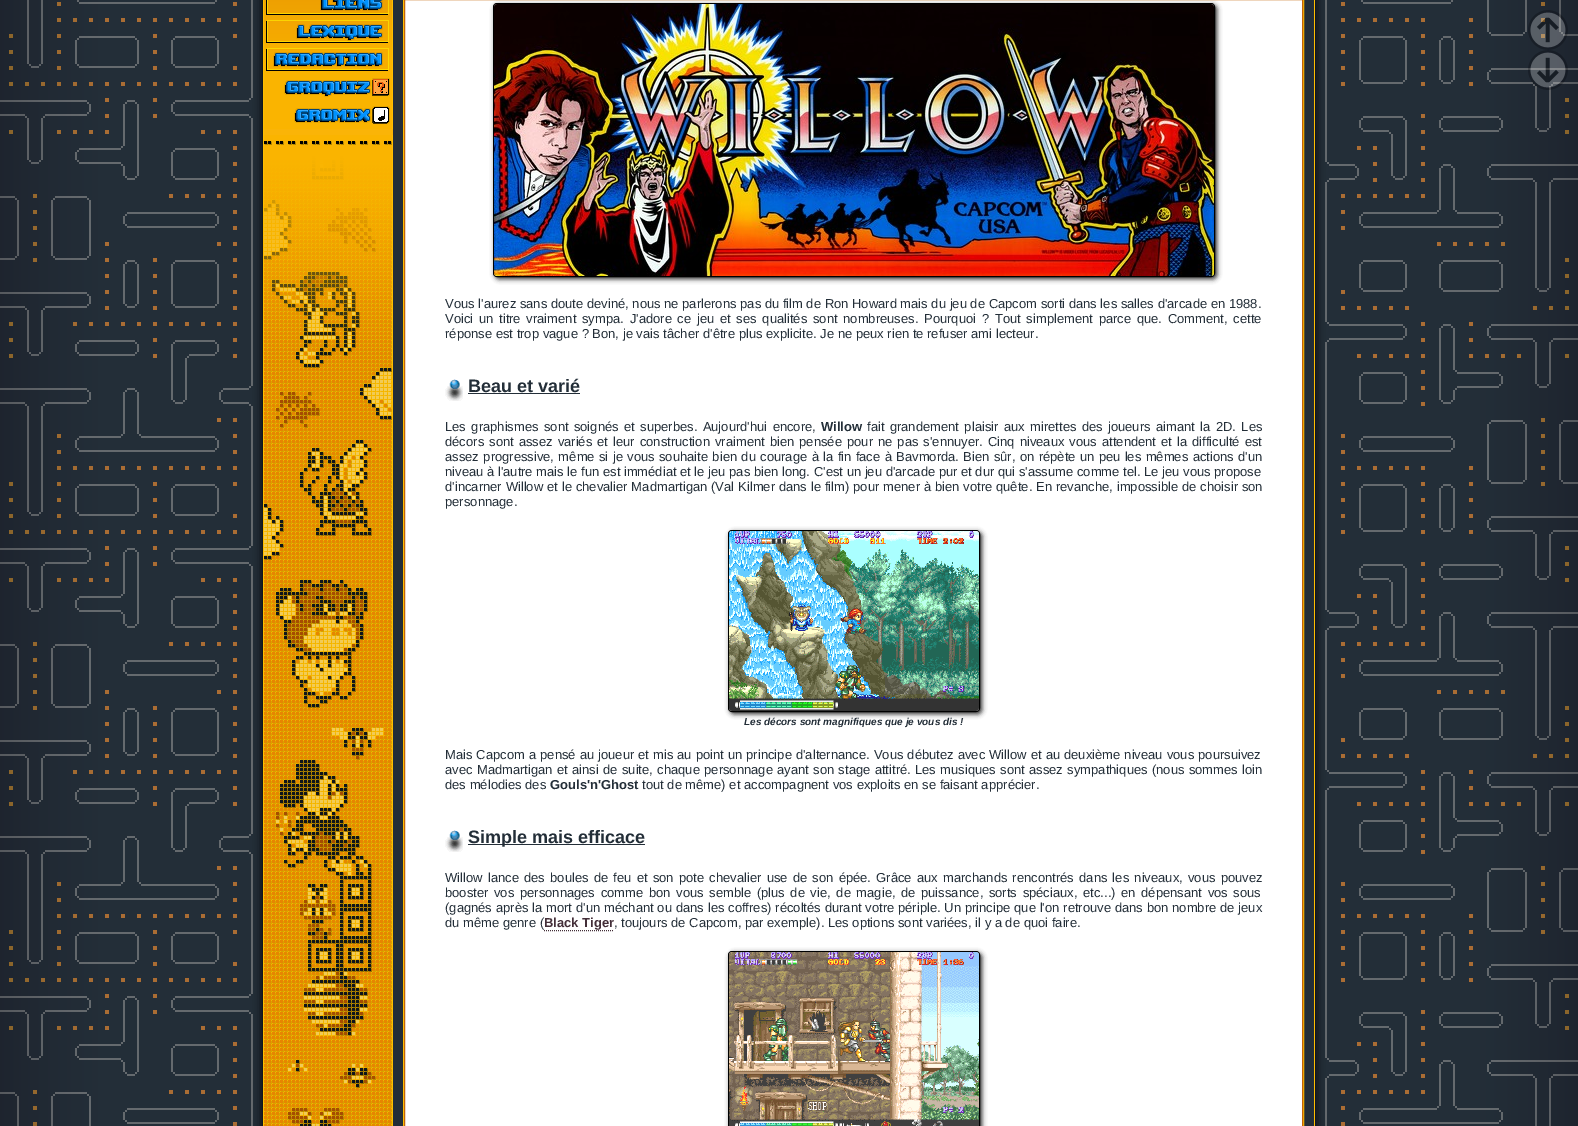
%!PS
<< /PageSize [1578 1126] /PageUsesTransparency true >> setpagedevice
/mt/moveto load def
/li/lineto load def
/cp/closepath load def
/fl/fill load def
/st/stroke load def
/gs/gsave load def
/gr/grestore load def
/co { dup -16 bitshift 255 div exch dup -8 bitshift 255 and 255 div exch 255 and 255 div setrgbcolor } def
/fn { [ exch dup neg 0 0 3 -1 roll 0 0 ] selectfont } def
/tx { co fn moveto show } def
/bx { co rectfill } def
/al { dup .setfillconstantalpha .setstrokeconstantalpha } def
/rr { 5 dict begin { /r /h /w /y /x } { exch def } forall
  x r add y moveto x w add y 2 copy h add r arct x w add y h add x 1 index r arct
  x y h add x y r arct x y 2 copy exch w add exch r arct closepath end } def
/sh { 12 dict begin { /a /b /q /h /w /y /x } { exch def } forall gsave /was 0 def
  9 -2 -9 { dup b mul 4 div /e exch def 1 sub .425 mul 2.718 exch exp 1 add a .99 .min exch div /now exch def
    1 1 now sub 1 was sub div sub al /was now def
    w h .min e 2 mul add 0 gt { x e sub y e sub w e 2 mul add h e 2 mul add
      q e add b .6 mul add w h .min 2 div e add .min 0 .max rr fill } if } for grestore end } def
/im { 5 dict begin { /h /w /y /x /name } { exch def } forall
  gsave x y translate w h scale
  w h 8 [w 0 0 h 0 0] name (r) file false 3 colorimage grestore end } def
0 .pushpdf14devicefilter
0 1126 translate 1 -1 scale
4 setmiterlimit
0 0 1578 1126 16#FFFFFF bx
(media/1.raw) 0 0 1578 1126 im
(media/2.raw) 1528 10 40 40 im
(media/3.raw) 1528 50 40 40 im
gs
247 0 mt 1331 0 li 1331 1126 li 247 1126 li cp 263 -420 mt 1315 -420 li 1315 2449 li 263 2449 li cp eoclip newpath
16#000000 co
263 -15 1052 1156 0 5 1 sh
gr
(media/4.raw) 264 135 129 991 im
1314 0 1 1126 16#FFBE00 bx
263 0 1 1126 16#FFBE00 bx
264 129 129 6 16#FAB407 bx
(media/5.raw) 264 0 129 17 im
(media/6.raw) 264 17 129 28 im
(media/7.raw) 264 45 129 28 im
(media/8.raw) 264 73 129 28 im
(media/9.raw) 264 101 129 28 im
(media/10.raw) 264 135 128 10 im
(media/11.raw) 264 145 128 204 im
16#FFBE00 co
403.5 -.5 900 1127 rectstroke
16#FFFFFF co
404.5 -.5 mt 1302.5 -.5 li 1302.5 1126.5 li 404.5 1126.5 li cp gs fl gr
16#C36407 co
st
16#303030 co
495 5 722 274 4 2.5 1 sh
16#000000 co
493.5 3.5 721 273 3.5 rr st
(media/12.raw) 494 4 720 272 im
(media/13.raw) 445 379 18 22 im
468 393 112 1 16#232E38 bx
16#303030 co
730 532 252 182 4 2.5 1 sh
16#000000 co
728.5 530.5 251 181 3.5 rr st
(media/14.raw) 729 531 250 180 im
(media/13.raw) 445 830 18 22 im
468 844 177 1 16#232E38 bx
16#432E38 co
[1 1] 0 setdash
544 930.5 mt 614 930.5 li st
16#303030 co
730 953 252 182 4 2.5 1 sh
16#000000 co
[] 0 setdash
728.5 951.5 251 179 3.5 rr st
(media/15.raw) 729 952 250 174 im
(Vous l'aurez sans doute deviné, nous ne parlerons pas du film de Ron Howard mais du jeu de Capcom sorti dans les salles d'arcade en 1988.) 445 308 /LiberationSans-Regular 13 16#232E38 tx
445 323 mt 2.1 0 32 (Voici un titre vraiment sympa. J'adore ce jeu et ses qualités sont nombreuses. Pourquoi ? Tout simplement parce que. Comment, cette) widthshow
(réponse est trop vague ? Bon, je vais tâcher d'être plus explicite. Je ne peux rien te refuser ami lecteur.) 445 338 /LiberationSans-Regular 13 16#232E38 tx
(Beau et varié) 468 392 /LiberationSans-Bold 18 16#232E38 tx
/LiberationSans-Regular 13 fn
445 431 mt 1.75 0 32 (Les graphismes sont soignés et superbes. Aujourd'hui encore,) widthshow
(Willow) 821 431 /LiberationSans-Bold 13 16#232E38 tx
/LiberationSans-Regular 13 fn
867 431 mt 1.75 0 32 (fait grandement plaisir aux mirettes des joueurs aimant la 2D. Les) widthshow
445 446 mt 1.4 0 32 (décors sont assez variés et leur construction vraiment bien pensée pour ne pas s'ennuyer. Cinq niveaux vous attendent et la difficulté est) widthshow
445 461 mt .75 0 32 (assez progressive, même si je vous souhaite bien du courage à la fin face à Bavmorda. Bien sûr, on répète un peu les mêmes actions d'un) widthshow
(niveau à l'autre mais le fun est immédiat et le jeu pas bien long. C'est un jeu d'arcade pur et dur qui s'assume comme tel. Le jeu vous propose) 445 476 /LiberationSans-Regular 13 16#232E38 tx
445 491 mt .25 0 32 (d'incarner Willow et le chevalier Madmartigan \(Val Kilmer dans le film\) pour mener à bien votre quête. En revanche, impossible de choisir son) widthshow
(personnage.) 445 506 /LiberationSans-Regular 13 16#232E38 tx
(Les décors sont magnifiques que je vous dis !) 744 725 /LiberationSans-BoldItalic 10 16#232E38 tx
/LiberationSans-Regular 13 fn
445 759 mt .4 0 32 (Mais Capcom a pensé au joueur et mis au point un principe d'alternance. Vous débutez avec Willow et au deuxième niveau vous poursuivez) widthshow
445 774 mt .7 0 32 (avec Madmartigan et ainsi de suite, chaque personnage ayant son stage attitré. Les musiques sont assez sympathiques \(nous sommes loin) widthshow
(des mélodies des) 445 789 /LiberationSans-Regular 13 16#232E38 tx
(Gouls'n'Ghost) 550 789 /LiberationSans-Bold 13 16#232E38 tx
(tout de même\) et accompagnent vos exploits en se faisant apprécier.) 642 789 /LiberationSans-Regular 13 16#232E38 tx
(Simple mais efficace) 468 843 /LiberationSans-Bold 18 16#232E38 tx
/LiberationSans-Regular 13 fn
445 882 mt 1.6 0 32 (Willow lance des boules de feu et son pote chevalier use de son épée. Grâce aux marchands rencontrés dans les niveaux, vous pouvez) widthshow
445 897 mt 2 0 32 (booster vos personnages comme bon vous semble \(plus de vie, de magie, de puissance, sorts spéciaux, etc...\) en dépensant vos sous) widthshow
445 912 mt .2 0 32 (\(gagnés après la mort d'un méchant ou dans les coffres\) récoltés durant votre périple. Un principe que l'on retrouve dans bon nombre de jeux) widthshow
(du même genre \() 445 927 /LiberationSans-Regular 13 16#232E38 tx
(Black Tiger) 544 927 /LiberationSans-Bold 13 16#432E38 tx
(, toujours de Capcom, par exemple\). Les options sont variées, il y a de quoi faire.) 614 927 /LiberationSans-Regular 13 16#232E38 tx
.poppdf14devicefilter showpage
